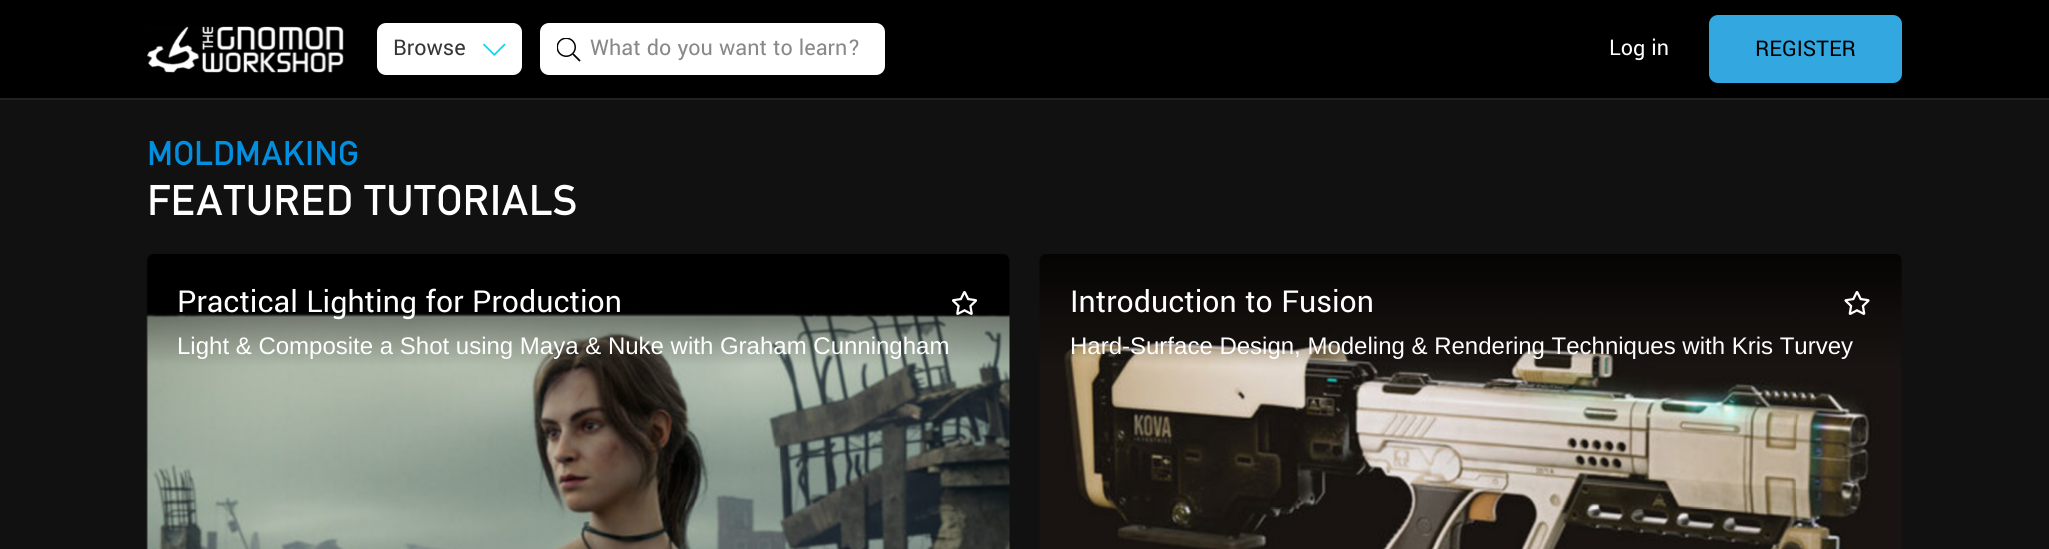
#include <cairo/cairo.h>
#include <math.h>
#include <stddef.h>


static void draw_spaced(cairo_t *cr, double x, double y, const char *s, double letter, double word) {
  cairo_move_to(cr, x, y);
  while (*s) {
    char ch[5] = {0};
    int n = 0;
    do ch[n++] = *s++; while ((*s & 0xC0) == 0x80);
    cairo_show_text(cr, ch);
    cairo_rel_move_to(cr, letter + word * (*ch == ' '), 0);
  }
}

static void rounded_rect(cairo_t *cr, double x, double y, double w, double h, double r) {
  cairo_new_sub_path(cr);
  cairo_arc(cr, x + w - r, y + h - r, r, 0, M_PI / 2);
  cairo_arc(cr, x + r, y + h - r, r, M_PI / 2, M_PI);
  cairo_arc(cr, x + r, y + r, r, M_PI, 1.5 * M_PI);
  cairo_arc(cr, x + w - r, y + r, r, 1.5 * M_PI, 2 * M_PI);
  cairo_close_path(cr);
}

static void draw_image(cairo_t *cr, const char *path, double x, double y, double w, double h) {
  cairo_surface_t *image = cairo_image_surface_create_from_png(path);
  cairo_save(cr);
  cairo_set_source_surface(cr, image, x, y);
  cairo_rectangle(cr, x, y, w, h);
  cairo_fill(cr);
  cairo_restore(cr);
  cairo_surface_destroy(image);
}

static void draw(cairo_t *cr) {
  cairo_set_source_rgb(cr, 0, 0, 0);
  cairo_paint(cr);
  draw_image(cr, "images/1.png", 147, 26, 197, 47);
  cairo_set_source_rgb(cr, 1, 1, 1);
  rounded_rect(cr, 377, 23, 145, 52, 9);
  cairo_fill(cr);
  draw_image(cr, "images/2.png", 483, 43, 23, 13);
  rounded_rect(cr, 540, 23, 345, 52, 9);
  cairo_fill(cr);
  draw_image(cr, "images/3.png", 557, 38, 24, 24);
  cairo_set_source_rgb(cr, 51 / 255.0, 168 / 255.0, 224 / 255.0);
  rounded_rect(cr, 1710, 16, 191, 66, 8);
  cairo_fill_preserve(cr);
  cairo_stroke(cr);
  cairo_set_source_rgb(cr, 17 / 255.0, 17 / 255.0, 17 / 255.0);
  cairo_rectangle(cr, 0, 100, 2049, 449);
  cairo_fill(cr);
  cairo_set_source_rgb(cr, 33 / 255.0, 33 / 255.0, 33 / 255.0);
  cairo_rectangle(cr, 0, 98, 2049, 2);
  cairo_fill(cr);
  draw_image(cr, "images/4.png", 146, 254, 864, 295);
  draw_image(cr, "images/5.png", 952, 291, 25, 24);
  draw_image(cr, "images/6.png", 1039, 254, 863, 295);
  draw_image(cr, "images/7.png", 1844, 291, 26, 24);
  cairo_select_font_face(cr, "Yantramanav", CAIRO_FONT_SLANT_NORMAL, CAIRO_FONT_WEIGHT_NORMAL);
  cairo_set_font_size(cr, 24);
  cairo_set_source_rgb(cr, 54 / 255.0, 54 / 255.0, 54 / 255.0);
  cairo_move_to(cr, 393, 55);
  cairo_show_text(cr, "Browse");
  cairo_set_source_rgb(cr, 136 / 255.0, 136 / 255.0, 136 / 255.0);
  cairo_move_to(cr, 590, 55);
  cairo_show_text(cr, "What do you want to learn?");
  cairo_set_source_rgb(cr, 1, 1, 1);
  cairo_move_to(cr, 1609, 55);
  cairo_show_text(cr, "Log in");
  cairo_set_source_rgb(cr, 0, 0, 0);
  cairo_move_to(cr, 1755, 56);
  cairo_show_text(cr, "REGISTER");
  cairo_select_font_face(cr, "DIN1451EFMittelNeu", CAIRO_FONT_SLANT_NORMAL, CAIRO_FONT_WEIGHT_NORMAL);
  cairo_set_font_size(cr, 36);
  cairo_set_source_rgb(cr, 2 / 255.0, 143 / 255.0, 223 / 255.0);
  cairo_move_to(cr, 147, 165);
  cairo_show_text(cr, "MOLDMAKING");
  cairo_set_font_size(cr, 45);
  cairo_set_source_rgb(cr, 1, 1, 1);
  draw_spaced(cr, 147, 215, "FEATURED TUTORIALS", 0, -11);
  cairo_select_font_face(cr, "Yantramanav", CAIRO_FONT_SLANT_NORMAL, CAIRO_FONT_WEIGHT_NORMAL);
  cairo_set_font_size(cr, 33.6);
  cairo_move_to(cr, 177, 312);
  cairo_show_text(cr, "Practical Lighting for Production");
  cairo_select_font_face(cr, "Liberation Sans", CAIRO_FONT_SLANT_NORMAL, CAIRO_FONT_WEIGHT_NORMAL);
  cairo_set_font_size(cr, 24);
  cairo_move_to(cr, 177, 354);
  cairo_show_text(cr, "Light & Composite a Shot using Maya & Nuke with Graham Cunningham");
  cairo_select_font_face(cr, "Yantramanav", CAIRO_FONT_SLANT_NORMAL, CAIRO_FONT_WEIGHT_NORMAL);
  cairo_set_font_size(cr, 33.6);
  cairo_move_to(cr, 1070, 312);
  cairo_show_text(cr, "Introduction to Fusion");
  cairo_select_font_face(cr, "Liberation Sans", CAIRO_FONT_SLANT_NORMAL, CAIRO_FONT_WEIGHT_NORMAL);
  cairo_set_font_size(cr, 24);
  cairo_move_to(cr, 1070, 354);
  cairo_show_text(cr, "Hard-Surface Design, Modeling & Rendering Techniques with Kris Turvey");
}

int main(void) {
  cairo_surface_t *surface = cairo_image_surface_create(CAIRO_FORMAT_RGB24, 2049, 549);
  cairo_t *cr = cairo_create(surface);
  cairo_font_options_t *options = cairo_font_options_create();
  cairo_font_options_set_hint_metrics(options, CAIRO_HINT_METRICS_OFF);
  cairo_font_options_set_hint_style(options, CAIRO_HINT_STYLE_NONE);
  cairo_set_font_options(cr, options);
  cairo_set_miter_limit(cr, 4);
  draw(cr);
  cairo_surface_write_to_png(surface, "out.png");
  cairo_font_options_destroy(options);
  cairo_destroy(cr);
  cairo_surface_destroy(surface);
  return 0;
}
